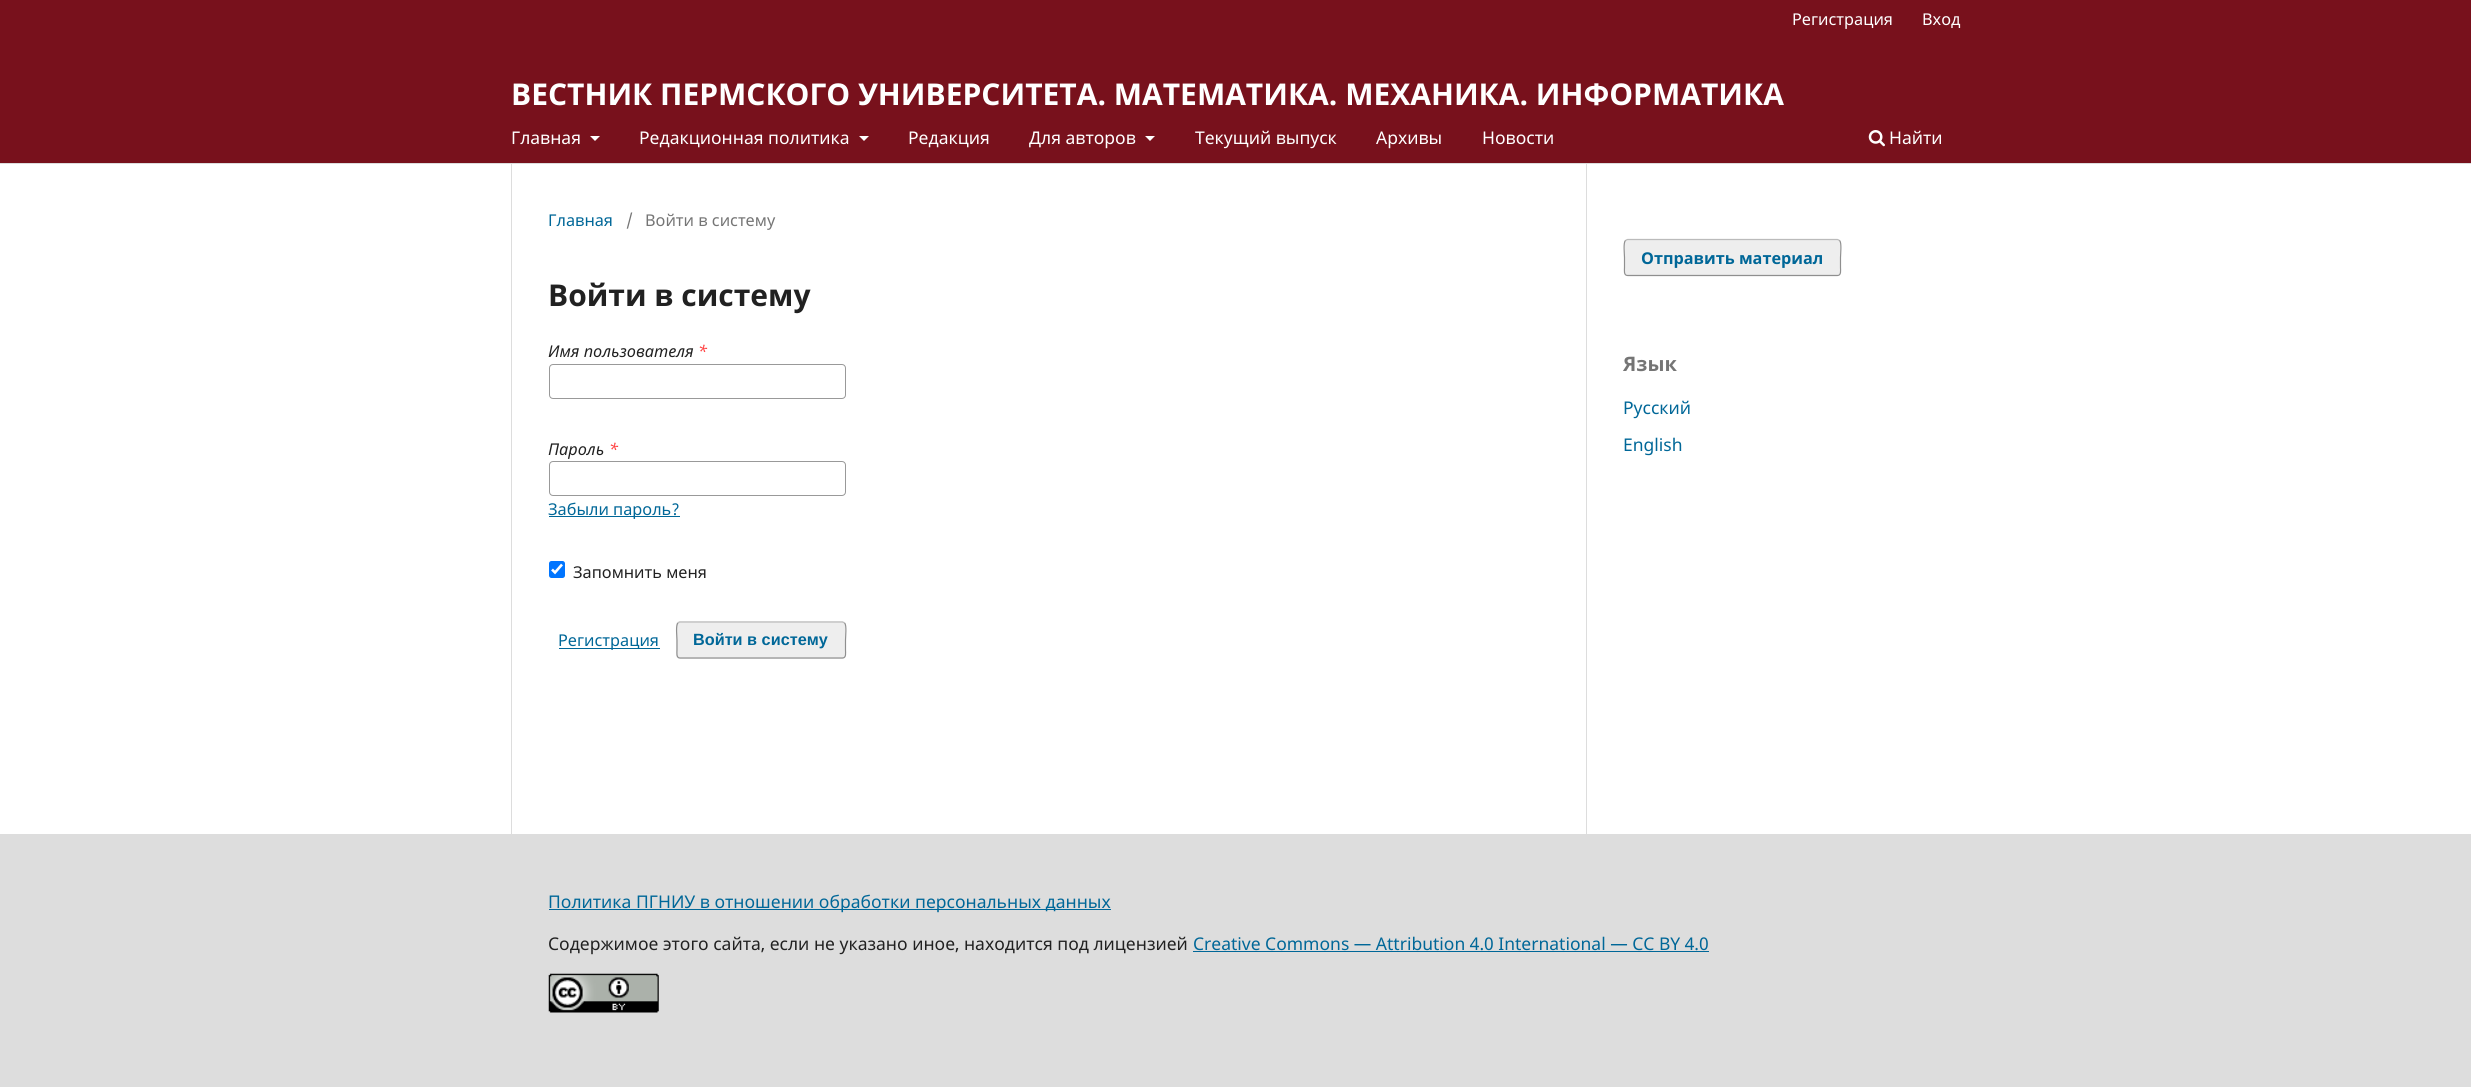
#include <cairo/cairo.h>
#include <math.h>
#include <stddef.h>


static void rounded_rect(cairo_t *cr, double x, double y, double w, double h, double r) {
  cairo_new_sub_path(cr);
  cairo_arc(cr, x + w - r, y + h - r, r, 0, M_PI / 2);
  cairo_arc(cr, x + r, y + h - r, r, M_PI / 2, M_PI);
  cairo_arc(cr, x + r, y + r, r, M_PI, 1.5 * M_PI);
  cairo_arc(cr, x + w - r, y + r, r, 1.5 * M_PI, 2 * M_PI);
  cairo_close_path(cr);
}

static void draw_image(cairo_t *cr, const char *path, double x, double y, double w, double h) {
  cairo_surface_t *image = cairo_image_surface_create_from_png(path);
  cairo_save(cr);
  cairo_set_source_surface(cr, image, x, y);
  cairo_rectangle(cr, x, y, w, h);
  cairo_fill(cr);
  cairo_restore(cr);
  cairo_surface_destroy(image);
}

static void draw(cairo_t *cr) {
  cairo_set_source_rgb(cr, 1, 1, 1);
  cairo_paint(cr);
  cairo_set_source_rgb(cr, 120 / 255.0, 17 / 255.0, 28 / 255.0);
  cairo_rectangle(cr, 0, 0, 2471, 163);
  cairo_fill(cr);
  cairo_set_source_rgb(cr, 221 / 255.0, 221 / 255.0, 221 / 255.0);
  cairo_rectangle(cr, 0, 163, 2471, 1);
  cairo_fill(cr);
  cairo_set_source_rgb(cr, 1, 1, 1);
  cairo_new_path(cr);
  cairo_move_to(cr, 590, 136);
  cairo_line_to(cr, 600, 136);
  cairo_line_to(cr, 595, 141);
  cairo_close_path(cr);
  cairo_fill(cr);
  cairo_new_path(cr);
  cairo_move_to(cr, 859, 136);
  cairo_line_to(cr, 869, 136);
  cairo_line_to(cr, 864, 141);
  cairo_close_path(cr);
  cairo_fill(cr);
  cairo_new_path(cr);
  cairo_move_to(cr, 1145, 136);
  cairo_line_to(cr, 1155, 136);
  cairo_line_to(cr, 1150, 141);
  cairo_close_path(cr);
  cairo_fill(cr);
  draw_image(cr, "images/1.png", 1868, 130, 17, 17);
  cairo_set_source_rgb(cr, 221 / 255.0, 221 / 255.0, 221 / 255.0);
  cairo_rectangle(cr, 511, 164, 1, 670);
  cairo_fill(cr);
  rounded_rect(cr, 549.5, 364.5, 296, 34, 3.5);
  cairo_set_source_rgb(cr, 153 / 255.0, 153 / 255.0, 153 / 255.0);
  cairo_set_line_width(cr, 1);
  cairo_stroke(cr);
  rounded_rect(cr, 549.5, 461.5, 296, 34, 3.5);
  cairo_stroke(cr);
  cairo_set_source_rgb(cr, 0, 103 / 255.0, 152 / 255.0);
  cairo_rectangle(cr, 549, 516, 131, 1);
  cairo_fill(cr);
  cairo_set_source_rgb(cr, 0, 117 / 255.0, 1);
  rounded_rect(cr, 549, 561, 16, 17, 2.5);
  cairo_fill(cr);
  cairo_new_path(cr);
  cairo_move_to(cr, 552, 569.5);
  cairo_line_to(cr, 555, 572.5);
  cairo_line_to(cr, 562, 564.5);
  cairo_set_source_rgb(cr, 1, 1, 1);
  cairo_set_line_width(cr, 2.6);
  cairo_stroke(cr);
  cairo_set_source_rgb(cr, 0, 103 / 255.0, 152 / 255.0);
  cairo_rectangle(cr, 559, 648, 101, 1);
  cairo_fill(cr);
  cairo_set_source_rgb(cr, 238 / 255.0, 238 / 255.0, 238 / 255.0);
  rounded_rect(cr, 676, 621, 170, 38, 4);
  cairo_fill(cr);
  cairo_new_path(cr);
  cairo_move_to(cr, 678, 623);
  cairo_line_to(cr, 679.5, 622);
  cairo_line_to(cr, 815.5, 622);
  cairo_line_to(cr, 842.5, 622);
  cairo_line_to(cr, 844.5, 623);
  cairo_set_source_rgb(cr, 187 / 255.0, 187 / 255.0, 187 / 255.0);
  cairo_set_line_width(cr, 1.2);
  cairo_stroke(cr);
  cairo_new_path(cr);
  cairo_move_to(cr, 844.5, 623);
  cairo_curve_to(cr, 847, 625, 845.5, 637, 845.5, 640);
  cairo_line_to(cr, 845.5, 650);
  cairo_curve_to(cr, 845.5, 652.5, 846.5, 658, 842.5, 658);
  cairo_line_to(cr, 680, 658);
  cairo_curve_to(cr, 676, 658, 677, 652.5, 677, 650);
  cairo_line_to(cr, 677, 640);
  cairo_curve_to(cr, 677, 637, 675.5, 625, 678, 623);
  cairo_set_source_rgba(cr, 0, 0, 0, 0.4);
  cairo_stroke(cr);
  cairo_set_source_rgb(cr, 221 / 255.0, 221 / 255.0, 221 / 255.0);
  cairo_rectangle(cr, 1586, 164, 1, 670);
  cairo_fill(cr);
  cairo_set_source_rgb(cr, 238 / 255.0, 238 / 255.0, 238 / 255.0);
  rounded_rect(cr, 1624, 239, 217, 37, 4);
  cairo_fill(cr);
  cairo_new_path(cr);
  cairo_move_to(cr, 1625.5, 240.5);
  cairo_line_to(cr, 1627.5, 239.5);
  cairo_line_to(cr, 1837.5, 239.5);
  cairo_line_to(cr, 1839.5, 240.5);
  cairo_set_source_rgb(cr, 187 / 255.0, 187 / 255.0, 187 / 255.0);
  cairo_stroke(cr);
  cairo_new_path(cr);
  cairo_move_to(cr, 1839.5, 240.5);
  cairo_curve_to(cr, 1842, 242.5, 1840.5, 254.5, 1840.5, 257.5);
  cairo_line_to(cr, 1840.5, 267.5);
  cairo_curve_to(cr, 1840.5, 270, 1841.5, 275.5, 1837.5, 275.5);
  cairo_line_to(cr, 1627.5, 275.5);
  cairo_curve_to(cr, 1623.5, 275.5, 1624.5, 270, 1624.5, 267.5);
  cairo_line_to(cr, 1624.5, 257.5);
  cairo_curve_to(cr, 1624.5, 254.5, 1623, 242.5, 1625.5, 240.5);
  cairo_set_source_rgba(cr, 0, 0, 0, 0.4);
  cairo_stroke(cr);
  cairo_set_source_rgb(cr, 221 / 255.0, 221 / 255.0, 221 / 255.0);
  cairo_rectangle(cr, 0, 834, 2471, 253);
  cairo_fill(cr);
  cairo_set_source_rgb(cr, 0, 103 / 255.0, 152 / 255.0);
  cairo_rectangle(cr, 549, 909, 562, 1);
  cairo_fill(cr);
  cairo_rectangle(cr, 1193, 951, 516, 1);
  cairo_fill(cr);
  draw_image(cr, "images/2.png", 548, 973, 111, 40);
  cairo_select_font_face(cr, "Noto Sans", CAIRO_FONT_SLANT_NORMAL, CAIRO_FONT_WEIGHT_NORMAL);
  cairo_set_font_size(cr, 16.25);
  cairo_set_source_rgb(cr, 1, 1, 1);
  cairo_move_to(cr, 1792, 25);
  cairo_show_text(cr, "Регистрация");
  cairo_move_to(cr, 1922, 25);
  cairo_show_text(cr, "Вход");
  cairo_set_font_size(cr, 17.5);
  cairo_move_to(cr, 511, 144);
  cairo_show_text(cr, "Главная");
  cairo_move_to(cr, 639, 144);
  cairo_show_text(cr, "Редакционная политика");
  cairo_move_to(cr, 908, 144);
  cairo_show_text(cr, "Редакция");
  cairo_move_to(cr, 1029, 144);
  cairo_show_text(cr, "Для авторов");
  cairo_move_to(cr, 1195, 144);
  cairo_show_text(cr, "Текущий выпуск");
  cairo_move_to(cr, 1376, 144);
  cairo_show_text(cr, "Архивы");
  cairo_move_to(cr, 1482, 144);
  cairo_show_text(cr, "Новости");
  cairo_move_to(cr, 1889, 144);
  cairo_show_text(cr, "Найти");
  cairo_select_font_face(cr, "Noto Sans", CAIRO_FONT_SLANT_NORMAL, CAIRO_FONT_WEIGHT_BOLD);
  cairo_set_font_size(cr, 30);
  cairo_move_to(cr, 511, 105);
  cairo_show_text(cr, "ВЕСТНИК ПЕРМСКОГО УНИВЕРСИТЕТА. МАТЕМАТИКА. МЕХАНИКА. ИНФОРМАТИКА");
  cairo_select_font_face(cr, "Noto Sans", CAIRO_FONT_SLANT_NORMAL, CAIRO_FONT_WEIGHT_NORMAL);
  cairo_set_font_size(cr, 16.25);
  cairo_set_source_rgb(cr, 0, 103 / 255.0, 152 / 255.0);
  cairo_move_to(cr, 548, 226);
  cairo_show_text(cr, "Главная");
  cairo_set_source_rgb(cr, 117 / 255.0, 117 / 255.0, 117 / 255.0);
  cairo_move_to(cr, 626, 226);
  cairo_show_text(cr, "/");
  cairo_move_to(cr, 645, 226);
  cairo_show_text(cr, "Войти в систему");
  cairo_select_font_face(cr, "Noto Sans", CAIRO_FONT_SLANT_NORMAL, CAIRO_FONT_WEIGHT_BOLD);
  cairo_set_font_size(cr, 30);
  cairo_set_source_rgb(cr, 33 / 255.0, 33 / 255.0, 33 / 255.0);
  cairo_move_to(cr, 548, 306);
  cairo_show_text(cr, "Войти в систему");
  cairo_select_font_face(cr, "Noto Sans", CAIRO_FONT_SLANT_ITALIC, CAIRO_FONT_WEIGHT_NORMAL);
  cairo_set_font_size(cr, 16.25);
  cairo_move_to(cr, 548, 357);
  cairo_show_text(cr, "Имя пользователя");
  cairo_set_source_rgb(cr, 1, 64 / 255.0, 64 / 255.0);
  cairo_move_to(cr, 698, 357);
  cairo_show_text(cr, "*");
  cairo_set_source_rgb(cr, 33 / 255.0, 33 / 255.0, 33 / 255.0);
  cairo_move_to(cr, 548, 455);
  cairo_show_text(cr, "Пароль");
  cairo_set_source_rgb(cr, 1, 64 / 255.0, 64 / 255.0);
  cairo_move_to(cr, 609, 455);
  cairo_show_text(cr, "*");
  cairo_select_font_face(cr, "Noto Sans", CAIRO_FONT_SLANT_NORMAL, CAIRO_FONT_WEIGHT_NORMAL);
  cairo_set_source_rgb(cr, 0, 103 / 255.0, 152 / 255.0);
  cairo_move_to(cr, 548, 515);
  cairo_show_text(cr, "Забыли пароль?");
  cairo_set_source_rgb(cr, 33 / 255.0, 33 / 255.0, 33 / 255.0);
  cairo_move_to(cr, 573, 578);
  cairo_show_text(cr, "Запомнить меня");
  cairo_set_source_rgb(cr, 0, 103 / 255.0, 152 / 255.0);
  cairo_move_to(cr, 558, 646);
  cairo_show_text(cr, "Регистрация");
  cairo_select_font_face(cr, "Liberation Sans", CAIRO_FONT_SLANT_NORMAL, CAIRO_FONT_WEIGHT_BOLD);
  cairo_move_to(cr, 693, 645);
  cairo_show_text(cr, "Войти в систему");
  cairo_select_font_face(cr, "Noto Sans", CAIRO_FONT_SLANT_NORMAL, CAIRO_FONT_WEIGHT_BOLD);
  cairo_move_to(cr, 1641, 264);
  cairo_show_text(cr, "Отправить материал");
  cairo_set_font_size(cr, 20);
  cairo_set_source_rgb(cr, 117 / 255.0, 117 / 255.0, 117 / 255.0);
  cairo_move_to(cr, 1623, 371);
  cairo_show_text(cr, "Язык");
  cairo_select_font_face(cr, "Noto Sans", CAIRO_FONT_SLANT_NORMAL, CAIRO_FONT_WEIGHT_NORMAL);
  cairo_set_font_size(cr, 17.5);
  cairo_set_source_rgb(cr, 0, 103 / 255.0, 152 / 255.0);
  cairo_move_to(cr, 1623, 414);
  cairo_show_text(cr, "Русский");
  cairo_move_to(cr, 1623, 451);
  cairo_show_text(cr, "English");
  cairo_move_to(cr, 548, 908);
  cairo_show_text(cr, "Политика ПГНИУ в отношении обработки персональных данных");
  cairo_set_source_rgb(cr, 33 / 255.0, 33 / 255.0, 33 / 255.0);
  cairo_move_to(cr, 548, 950);
  cairo_show_text(cr, "Содержимое этого сайта, если не указано иное, находится под лицензией");
  cairo_set_source_rgb(cr, 0, 103 / 255.0, 152 / 255.0);
  cairo_move_to(cr, 1193, 950);
  cairo_show_text(cr, "Creative Commons — Attribution 4.0 International — CC BY 4.0");
}

int main(void) {
  cairo_surface_t *surface = cairo_image_surface_create(CAIRO_FORMAT_RGB24, 2471, 1087);
  cairo_t *cr = cairo_create(surface);
  cairo_font_options_t *options = cairo_font_options_create();
  cairo_font_options_set_hint_metrics(options, CAIRO_HINT_METRICS_OFF);
  cairo_font_options_set_hint_style(options, CAIRO_HINT_STYLE_NONE);
  cairo_set_font_options(cr, options);
  cairo_set_miter_limit(cr, 4);
  draw(cr);
  cairo_surface_write_to_png(surface, "out.png");
  cairo_font_options_destroy(options);
  cairo_destroy(cr);
  cairo_surface_destroy(surface);
  return 0;
}
